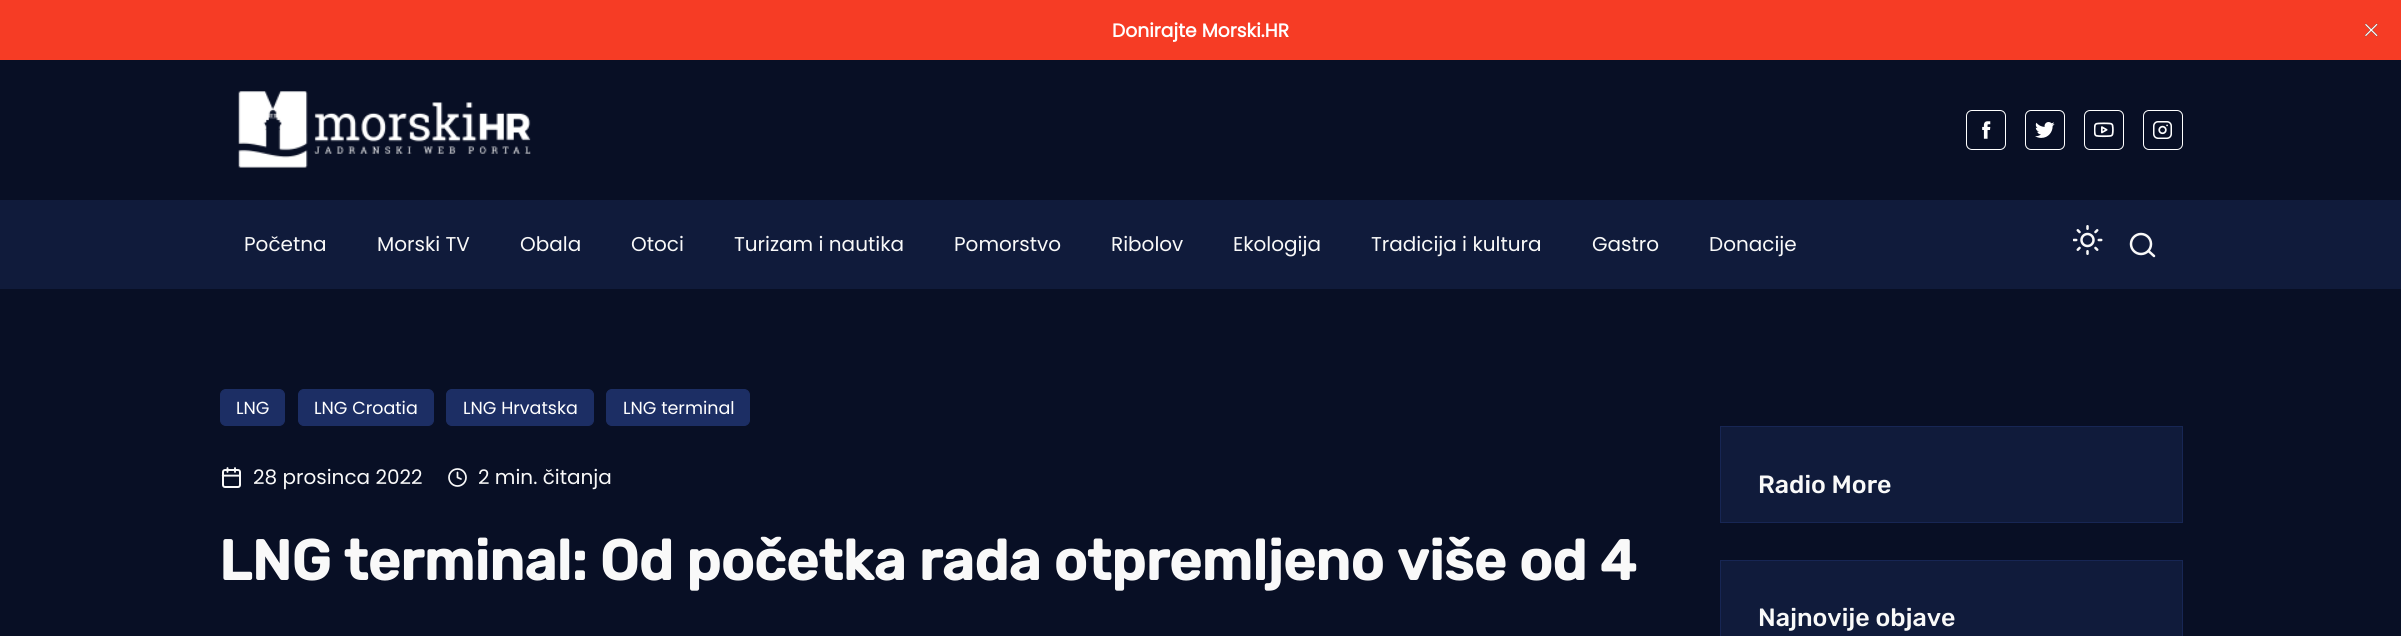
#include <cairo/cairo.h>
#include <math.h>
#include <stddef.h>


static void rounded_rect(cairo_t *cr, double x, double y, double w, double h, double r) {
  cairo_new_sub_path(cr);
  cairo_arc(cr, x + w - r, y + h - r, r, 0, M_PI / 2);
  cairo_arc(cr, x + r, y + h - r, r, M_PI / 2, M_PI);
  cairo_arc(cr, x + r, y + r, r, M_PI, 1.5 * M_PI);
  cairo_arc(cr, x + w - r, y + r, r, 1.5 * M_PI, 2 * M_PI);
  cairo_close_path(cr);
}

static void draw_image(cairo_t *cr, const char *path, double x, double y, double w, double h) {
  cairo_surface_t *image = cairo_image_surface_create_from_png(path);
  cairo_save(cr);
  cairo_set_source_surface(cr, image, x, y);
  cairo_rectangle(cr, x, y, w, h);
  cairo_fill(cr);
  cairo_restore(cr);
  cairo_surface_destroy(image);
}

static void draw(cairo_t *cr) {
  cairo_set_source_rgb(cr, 8 / 255.0, 15 / 255.0, 37 / 255.0);
  cairo_paint(cr);
  cairo_set_source_rgb(cr, 246 / 255.0, 60 / 255.0, 37 / 255.0);
  cairo_rectangle(cr, 0, 0, 2401, 60);
  cairo_fill(cr);
  draw_image(cr, "images/1.png", 2364, 23, 14, 14);
  draw_image(cr, "images/2.png", 238, 91, 293, 77);
  rounded_rect(cr, 1966.5, 110.5, 39, 39, 5.5);
  cairo_set_source_rgb(cr, 1, 1, 1);
  cairo_set_line_width(cr, 1);
  cairo_stroke(cr);
  draw_image(cr, "images/3.png", 1982, 121, 9, 18);
  rounded_rect(cr, 2025.5, 110.5, 39, 39, 5.5);
  cairo_stroke(cr);
  draw_image(cr, "images/4.png", 2035, 122, 20, 16);
  rounded_rect(cr, 2084.5, 110.5, 39, 39, 5.5);
  cairo_stroke(cr);
  draw_image(cr, "images/5.png", 2094, 122, 20, 16);
  rounded_rect(cr, 2143.5, 110.5, 39, 39, 5.5);
  cairo_stroke(cr);
  draw_image(cr, "images/6.png", 2153, 121, 19, 18);
  cairo_set_source_rgb(cr, 16 / 255.0, 27 / 255.0, 59 / 255.0);
  cairo_rectangle(cr, 0, 200, 2401, 89);
  cairo_fill(cr);
  draw_image(cr, "images/7.png", 2073, 225, 30, 30);
  cairo_arc(cr, 2141, 244, 10, 0, 2 * M_PI);
  cairo_set_source_rgb(cr, 249 / 255.0, 249 / 255.0, 249 / 255.0);
  cairo_set_line_width(cr, 2.5);
  cairo_stroke(cr);
  cairo_new_path(cr);
  cairo_move_to(cr, 2154, 256);
  cairo_line_to(cr, 2148.5, 251);
  cairo_set_line_cap(cr, CAIRO_LINE_CAP_ROUND);
  cairo_set_line_join(cr, CAIRO_LINE_JOIN_ROUND);
  cairo_stroke(cr);
  cairo_set_source_rgb(cr, 28 / 255.0, 46 / 255.0, 100 / 255.0);
  rounded_rect(cr, 220.5, 389.5, 64, 36, 5.5);
  cairo_fill_preserve(cr);
  cairo_set_line_width(cr, 1);
  cairo_set_line_cap(cr, CAIRO_LINE_CAP_BUTT);
  cairo_set_line_join(cr, CAIRO_LINE_JOIN_MITER);
  cairo_stroke(cr);
  rounded_rect(cr, 298.5, 389.5, 135, 36, 5.5);
  cairo_fill_preserve(cr);
  cairo_stroke(cr);
  rounded_rect(cr, 446.5, 389.5, 147, 36, 5.5);
  cairo_fill_preserve(cr);
  cairo_stroke(cr);
  rounded_rect(cr, 606.5, 389.5, 143, 36, 5.5);
  cairo_fill_preserve(cr);
  cairo_stroke(cr);
  draw_image(cr, "images/8.png", 221, 467, 20, 21);
  cairo_arc(cr, 457.5, 477.5, 8.5, 0, 2 * M_PI);
  cairo_set_source_rgb(cr, 249 / 255.0, 249 / 255.0, 249 / 255.0);
  cairo_set_line_width(cr, 1.7);
  cairo_stroke(cr);
  cairo_new_path(cr);
  cairo_move_to(cr, 457.5, 472.5);
  cairo_line_to(cr, 457.5, 477.5);
  cairo_line_to(cr, 461, 479);
  cairo_set_line_cap(cr, CAIRO_LINE_CAP_ROUND);
  cairo_set_line_join(cr, CAIRO_LINE_JOIN_ROUND);
  cairo_stroke(cr);
  cairo_set_source_rgb(cr, 16 / 255.0, 27 / 255.0, 59 / 255.0);
  cairo_rectangle(cr, 1720.5, 426.5, 462, 96);
  cairo_fill_preserve(cr);
  cairo_set_source_rgb(cr, 23 / 255.0, 38 / 255.0, 84 / 255.0);
  cairo_set_line_width(cr, 1);
  cairo_set_line_cap(cr, CAIRO_LINE_CAP_BUTT);
  cairo_set_line_join(cr, CAIRO_LINE_JOIN_MITER);
  cairo_stroke(cr);
  cairo_set_source_rgb(cr, 16 / 255.0, 27 / 255.0, 59 / 255.0);
  cairo_rectangle(cr, 1720.5, 560.5, 462, 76);
  cairo_fill_preserve(cr);
  cairo_set_source_rgb(cr, 23 / 255.0, 38 / 255.0, 84 / 255.0);
  cairo_stroke(cr);
  cairo_select_font_face(cr, "Poppins", CAIRO_FONT_SLANT_NORMAL, CAIRO_FONT_WEIGHT_BOLD);
  cairo_set_font_size(cr, 18.75);
  cairo_set_source_rgb(cr, 1, 1, 1);
  cairo_move_to(cr, 1112, 37);
  cairo_show_text(cr, "Donirajte Morski.HR");
  cairo_select_font_face(cr, "Poppins", CAIRO_FONT_SLANT_NORMAL, CAIRO_FONT_WEIGHT_NORMAL);
  cairo_set_font_size(cr, 20);
  cairo_set_source_rgb(cr, 249 / 255.0, 249 / 255.0, 249 / 255.0);
  cairo_move_to(cr, 244, 251);
  cairo_show_text(cr, "Početna");
  cairo_move_to(cr, 377, 251);
  cairo_show_text(cr, "Morski TV");
  cairo_move_to(cr, 520, 251);
  cairo_show_text(cr, "Obala");
  cairo_move_to(cr, 631, 251);
  cairo_show_text(cr, "Otoci");
  cairo_move_to(cr, 734, 251);
  cairo_show_text(cr, "Turizam i nautika");
  cairo_move_to(cr, 954, 251);
  cairo_show_text(cr, "Pomorstvo");
  cairo_move_to(cr, 1111, 251);
  cairo_show_text(cr, "Ribolov");
  cairo_move_to(cr, 1233, 251);
  cairo_show_text(cr, "Ekologija");
  cairo_move_to(cr, 1371, 251);
  cairo_show_text(cr, "Tradicija i kultura");
  cairo_move_to(cr, 1592, 251);
  cairo_show_text(cr, "Gastro");
  cairo_move_to(cr, 1709, 251);
  cairo_show_text(cr, "Donacije");
  cairo_set_font_size(cr, 17.5);
  cairo_set_source_rgb(cr, 1, 1, 1);
  cairo_move_to(cr, 236, 414);
  cairo_show_text(cr, "LNG");
  cairo_move_to(cr, 314, 414);
  cairo_show_text(cr, "LNG Croatia");
  cairo_move_to(cr, 463, 414);
  cairo_show_text(cr, "LNG Hrvatska");
  cairo_move_to(cr, 623, 414);
  cairo_show_text(cr, "LNG terminal");
  cairo_set_font_size(cr, 20);
  cairo_set_source_rgb(cr, 249 / 255.0, 249 / 255.0, 249 / 255.0);
  cairo_move_to(cr, 253, 484);
  cairo_show_text(cr, "28 prosinca 2022");
  cairo_move_to(cr, 478, 484);
  cairo_show_text(cr, "2 min. čitanja");
  cairo_select_font_face(cr, "Rubik", CAIRO_FONT_SLANT_NORMAL, CAIRO_FONT_WEIGHT_BOLD);
  cairo_set_font_size(cr, 56.25);
  cairo_move_to(cr, 219, 580);
  cairo_show_text(cr, "LNG terminal: Od početka rada otpremljeno više od 4");
  cairo_select_font_face(cr, "Rubik Medium", CAIRO_FONT_SLANT_NORMAL, CAIRO_FONT_WEIGHT_NORMAL);
  cairo_set_font_size(cr, 25);
  cairo_move_to(cr, 1758, 493);
  cairo_show_text(cr, "Radio More");
  cairo_move_to(cr, 1758, 626);
  cairo_show_text(cr, "Najnovije objave");
}

int main(void) {
  cairo_surface_t *surface = cairo_image_surface_create(CAIRO_FORMAT_RGB24, 2401, 636);
  cairo_t *cr = cairo_create(surface);
  cairo_font_options_t *options = cairo_font_options_create();
  cairo_font_options_set_hint_metrics(options, CAIRO_HINT_METRICS_OFF);
  cairo_font_options_set_hint_style(options, CAIRO_HINT_STYLE_NONE);
  cairo_set_font_options(cr, options);
  cairo_set_miter_limit(cr, 4);
  draw(cr);
  cairo_surface_write_to_png(surface, "out.png");
  cairo_font_options_destroy(options);
  cairo_destroy(cr);
  cairo_surface_destroy(surface);
  return 0;
}
